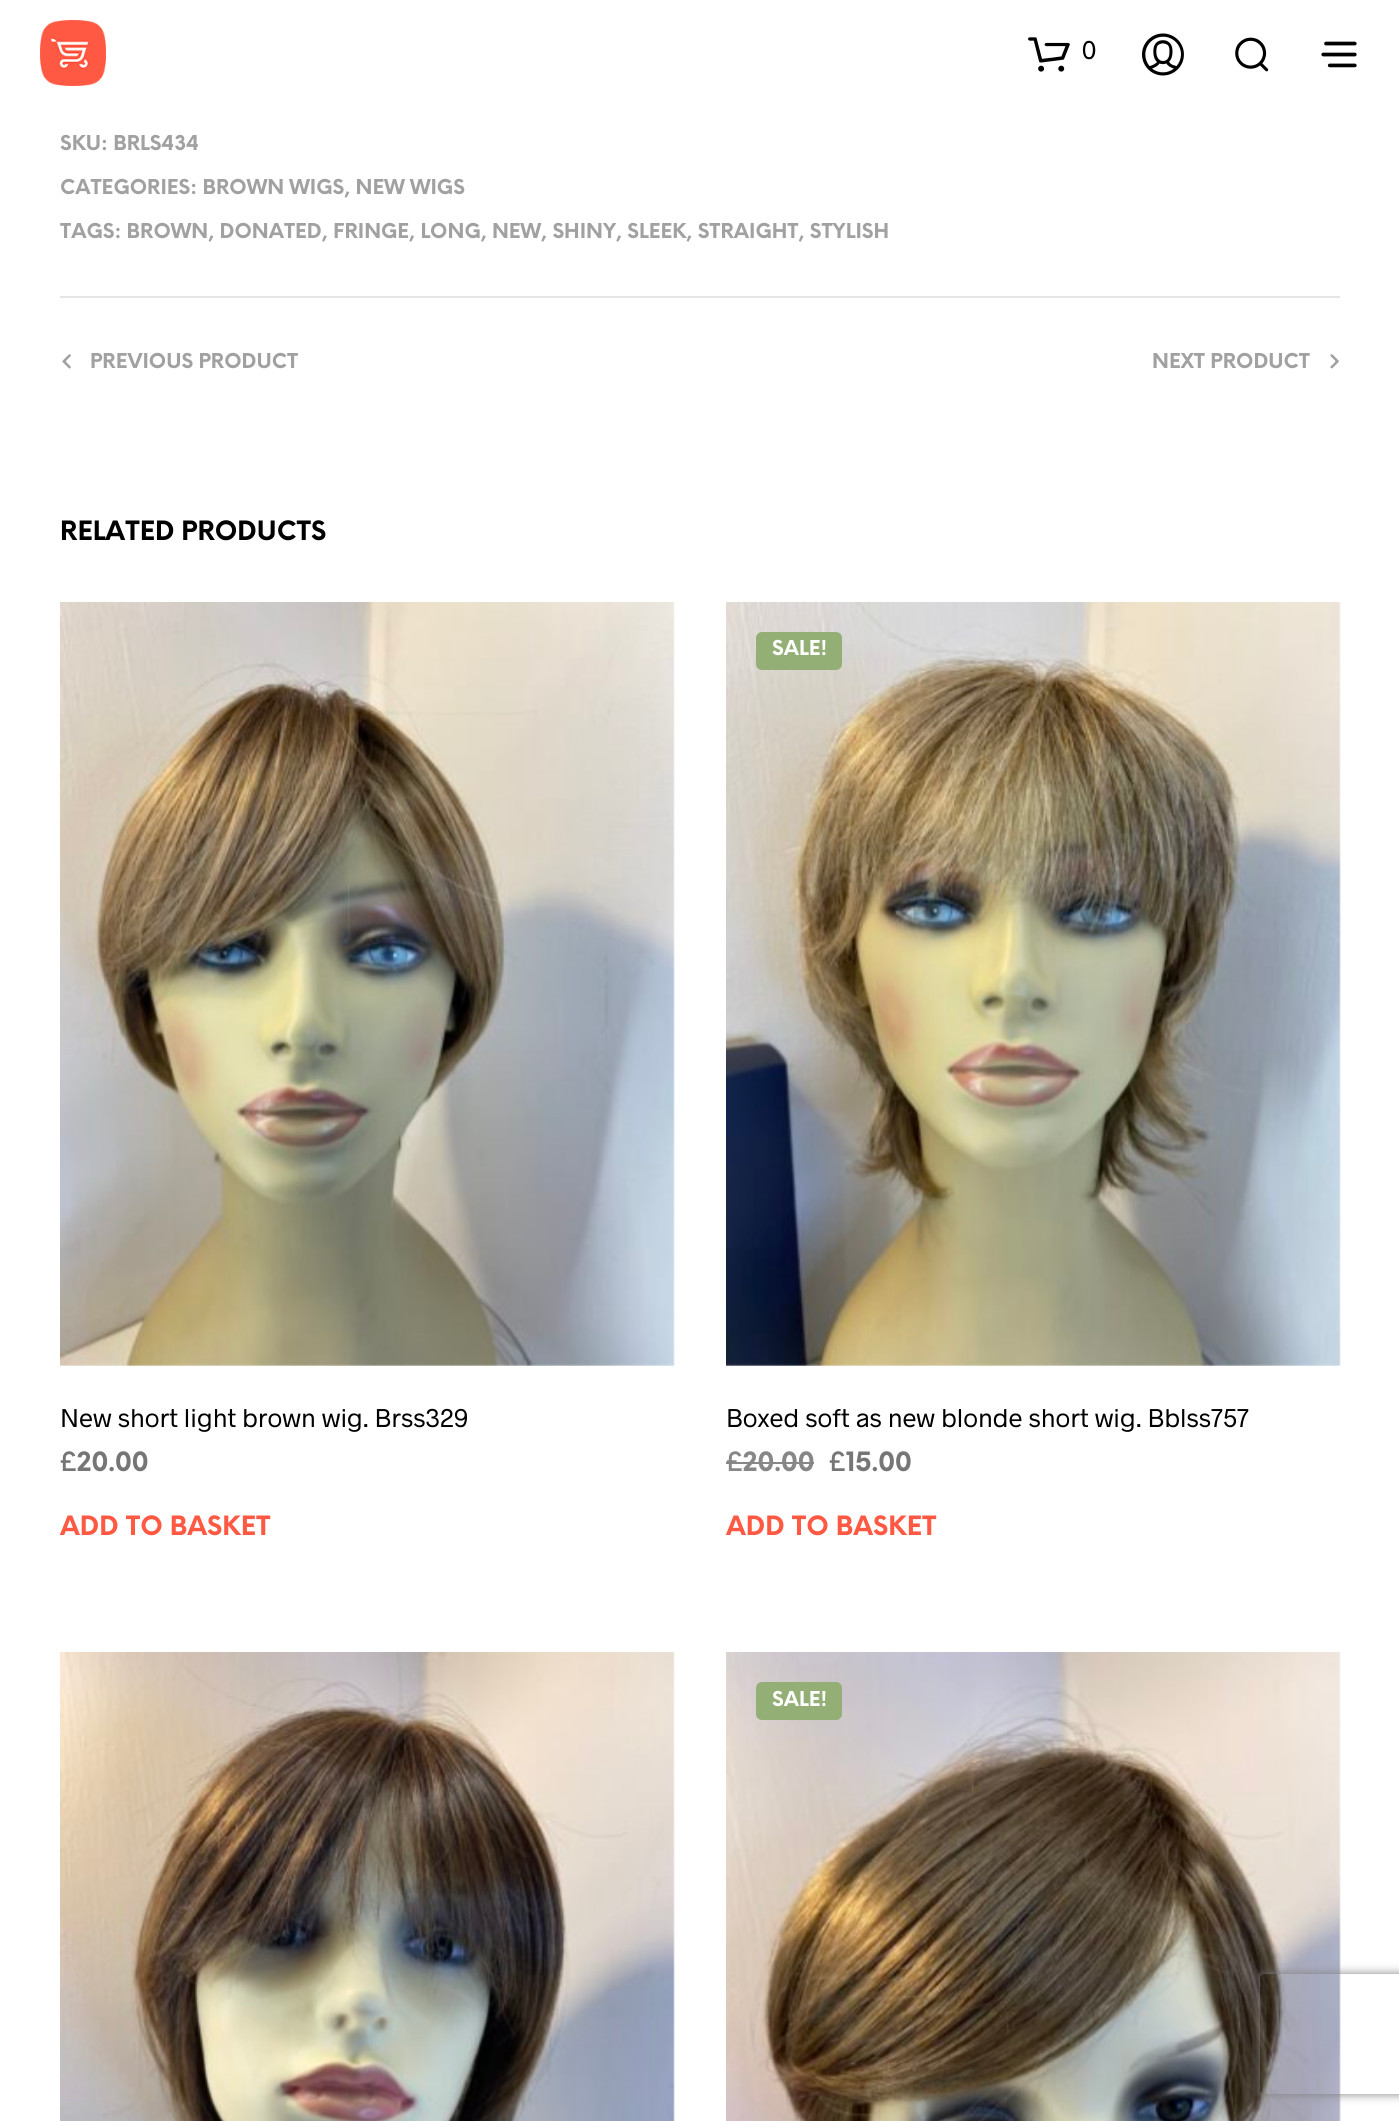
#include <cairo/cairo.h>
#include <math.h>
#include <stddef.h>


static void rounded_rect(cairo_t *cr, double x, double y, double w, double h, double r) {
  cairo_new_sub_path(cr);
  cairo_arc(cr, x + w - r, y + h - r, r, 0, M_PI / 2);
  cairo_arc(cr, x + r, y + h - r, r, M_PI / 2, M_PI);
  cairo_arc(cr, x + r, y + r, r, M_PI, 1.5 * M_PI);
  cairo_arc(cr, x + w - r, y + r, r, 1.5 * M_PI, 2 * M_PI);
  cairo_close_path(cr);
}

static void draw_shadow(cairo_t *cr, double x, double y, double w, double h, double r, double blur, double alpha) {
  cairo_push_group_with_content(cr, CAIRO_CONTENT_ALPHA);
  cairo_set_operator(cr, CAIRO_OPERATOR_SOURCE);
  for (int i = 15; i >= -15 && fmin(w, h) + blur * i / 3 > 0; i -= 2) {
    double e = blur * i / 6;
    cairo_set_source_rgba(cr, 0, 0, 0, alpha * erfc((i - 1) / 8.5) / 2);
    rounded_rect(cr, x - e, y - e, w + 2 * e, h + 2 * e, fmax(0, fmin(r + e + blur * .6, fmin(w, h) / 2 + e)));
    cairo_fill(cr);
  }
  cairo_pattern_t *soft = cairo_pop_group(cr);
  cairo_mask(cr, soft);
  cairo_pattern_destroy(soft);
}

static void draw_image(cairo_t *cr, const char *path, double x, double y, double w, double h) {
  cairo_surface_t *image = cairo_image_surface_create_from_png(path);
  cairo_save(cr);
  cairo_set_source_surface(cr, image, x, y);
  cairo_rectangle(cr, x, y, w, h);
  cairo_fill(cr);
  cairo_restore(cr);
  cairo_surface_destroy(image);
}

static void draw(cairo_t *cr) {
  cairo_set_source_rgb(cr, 1, 1, 1);
  cairo_paint(cr);
  draw_image(cr, "images/1.png", 40, 20, 66, 66);
  draw_image(cr, "images/2.png", 1028, 37, 42, 35);
  draw_image(cr, "images/3.png", 1142, 33, 42, 43);
  draw_image(cr, "images/4.png", 1235, 37, 34, 35);
  draw_image(cr, "images/5.png", 1321, 41, 36, 27);
  cairo_set_source_rgb(cr, 229 / 255.0, 229 / 255.0, 229 / 255.0);
  cairo_rectangle(cr, 60, 296, 1280, 2);
  cairo_fill(cr);
  draw_image(cr, "images/6.png", 62, 354, 9, 15);
  draw_image(cr, "images/7.png", 1330, 354, 9, 15);
  draw_image(cr, "images/8.png", 60, 602, 615, 764);
  draw_image(cr, "images/9.png", 726, 602, 615, 764);
  cairo_set_source_rgb(cr, 147 / 255.0, 175 / 255.0, 118 / 255.0);
  rounded_rect(cr, 756, 632, 86, 38, 6);
  cairo_fill(cr);
  cairo_set_source_rgb(cr, 135 / 255.0, 135 / 255.0, 135 / 255.0);
  cairo_rectangle(cr, 726, 1462, 88, 2);
  cairo_fill(cr);
  draw_image(cr, "images/10.png", 60, 1652, 615, 469);
  draw_image(cr, "images/11.png", 726, 1652, 615, 469);
  cairo_set_source_rgb(cr, 147 / 255.0, 175 / 255.0, 118 / 255.0);
  rounded_rect(cr, 756, 1682, 86, 38, 6);
  cairo_fill(cr);
  cairo_save(cr);
  cairo_set_fill_rule(cr, CAIRO_FILL_RULE_EVEN_ODD);
  cairo_new_path(cr);
  cairo_move_to(cr, 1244, 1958);
  cairo_line_to(cr, 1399, 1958);
  cairo_line_to(cr, 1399, 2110);
  cairo_line_to(cr, 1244, 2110);
  cairo_close_path(cr);
  cairo_move_to(cr, 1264, 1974);
  cairo_line_to(cr, 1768, 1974);
  cairo_curve_to(cr, 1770, 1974, 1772, 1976, 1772, 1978);
  cairo_line_to(cr, 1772, 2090);
  cairo_curve_to(cr, 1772, 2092, 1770, 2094, 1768, 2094);
  cairo_line_to(cr, 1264, 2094);
  cairo_curve_to(cr, 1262, 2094, 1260, 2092, 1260, 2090);
  cairo_line_to(cr, 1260, 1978);
  cairo_curve_to(cr, 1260, 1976, 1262, 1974, 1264, 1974);
  cairo_close_path(cr);
  cairo_clip(cr);
  cairo_set_source_rgb(cr, 128 / 255.0, 128 / 255.0, 128 / 255.0);
  draw_shadow(cr, 1260, 1974, 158, 120, 4, 5, 1);
  cairo_restore(cr);
  cairo_select_font_face(cr, "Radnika", CAIRO_FONT_SLANT_NORMAL, CAIRO_FONT_WEIGHT_NORMAL);
  cairo_set_font_size(cr, 26);
  cairo_set_source_rgb(cr, 0, 0, 0);
  cairo_move_to(cr, 1082, 59);
  cairo_show_text(cr, "0");
  cairo_select_font_face(cr, "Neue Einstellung", CAIRO_FONT_SLANT_NORMAL, CAIRO_FONT_WEIGHT_BOLD);
  cairo_set_font_size(cr, 20);
  cairo_set_source_rgb(cr, 161 / 255.0, 161 / 255.0, 161 / 255.0);
  cairo_move_to(cr, 60, 150);
  cairo_show_text(cr, "SKU: BRLS434");
  cairo_move_to(cr, 60, 194);
  cairo_show_text(cr, "CATEGORIES: BROWN WIGS, NEW WIGS");
  cairo_move_to(cr, 60, 238);
  cairo_show_text(cr, "TAGS: BROWN, DONATED, FRINGE, LONG, NEW, SHINY, SLEEK, STRAIGHT, STYLISH");
  cairo_move_to(cr, 90, 368);
  cairo_show_text(cr, "PREVIOUS PRODUCT");
  cairo_move_to(cr, 1152, 368);
  cairo_show_text(cr, "NEXT PRODUCT");
  cairo_set_font_size(cr, 26);
  cairo_set_source_rgb(cr, 0, 0, 0);
  cairo_move_to(cr, 60, 540);
  cairo_show_text(cr, "RELATED PRODUCTS");
  cairo_select_font_face(cr, "Radnika", CAIRO_FONT_SLANT_NORMAL, CAIRO_FONT_WEIGHT_NORMAL);
  cairo_move_to(cr, 60, 1427);
  cairo_show_text(cr, "New short light brown wig. Brss329");
  cairo_select_font_face(cr, "Neue Einstellung", CAIRO_FONT_SLANT_NORMAL, CAIRO_FONT_WEIGHT_BOLD);
  cairo_set_source_rgb(cr, 118 / 255.0, 118 / 255.0, 118 / 255.0);
  cairo_move_to(cr, 60, 1471);
  cairo_show_text(cr, "£20.00");
  cairo_set_source_rgb(cr, 1, 89 / 255.0, 67 / 255.0);
  cairo_move_to(cr, 60, 1535);
  cairo_show_text(cr, "ADD TO BASKET");
  cairo_set_font_size(cr, 20);
  cairo_set_source_rgb(cr, 1, 1, 1);
  cairo_move_to(cr, 772, 655);
  cairo_show_text(cr, "SALE!");
  cairo_select_font_face(cr, "Radnika", CAIRO_FONT_SLANT_NORMAL, CAIRO_FONT_WEIGHT_NORMAL);
  cairo_set_font_size(cr, 26);
  cairo_set_source_rgb(cr, 0, 0, 0);
  cairo_move_to(cr, 726, 1427);
  cairo_show_text(cr, "Boxed soft as new blonde short wig. Bblss757");
  cairo_select_font_face(cr, "Neue Einstellung", CAIRO_FONT_SLANT_NORMAL, CAIRO_FONT_WEIGHT_BOLD);
  cairo_set_source_rgb(cr, 135 / 255.0, 135 / 255.0, 135 / 255.0);
  cairo_move_to(cr, 726, 1471);
  cairo_show_text(cr, "£20.00");
  cairo_set_source_rgb(cr, 118 / 255.0, 118 / 255.0, 118 / 255.0);
  cairo_move_to(cr, 829, 1471);
  cairo_show_text(cr, "£15.00");
  cairo_set_source_rgb(cr, 1, 89 / 255.0, 67 / 255.0);
  cairo_move_to(cr, 726, 1535);
  cairo_show_text(cr, "ADD TO BASKET");
  cairo_set_font_size(cr, 20);
  cairo_set_source_rgb(cr, 1, 1, 1);
  cairo_move_to(cr, 772, 1706);
  cairo_show_text(cr, "SALE!");
}

int main(void) {
  cairo_surface_t *surface = cairo_image_surface_create(CAIRO_FORMAT_RGB24, 1399, 2121);
  cairo_t *cr = cairo_create(surface);
  cairo_font_options_t *options = cairo_font_options_create();
  cairo_font_options_set_hint_metrics(options, CAIRO_HINT_METRICS_OFF);
  cairo_font_options_set_hint_style(options, CAIRO_HINT_STYLE_NONE);
  cairo_set_font_options(cr, options);
  cairo_set_miter_limit(cr, 4);
  draw(cr);
  cairo_surface_write_to_png(surface, "out.png");
  cairo_font_options_destroy(options);
  cairo_destroy(cr);
  cairo_surface_destroy(surface);
  return 0;
}
